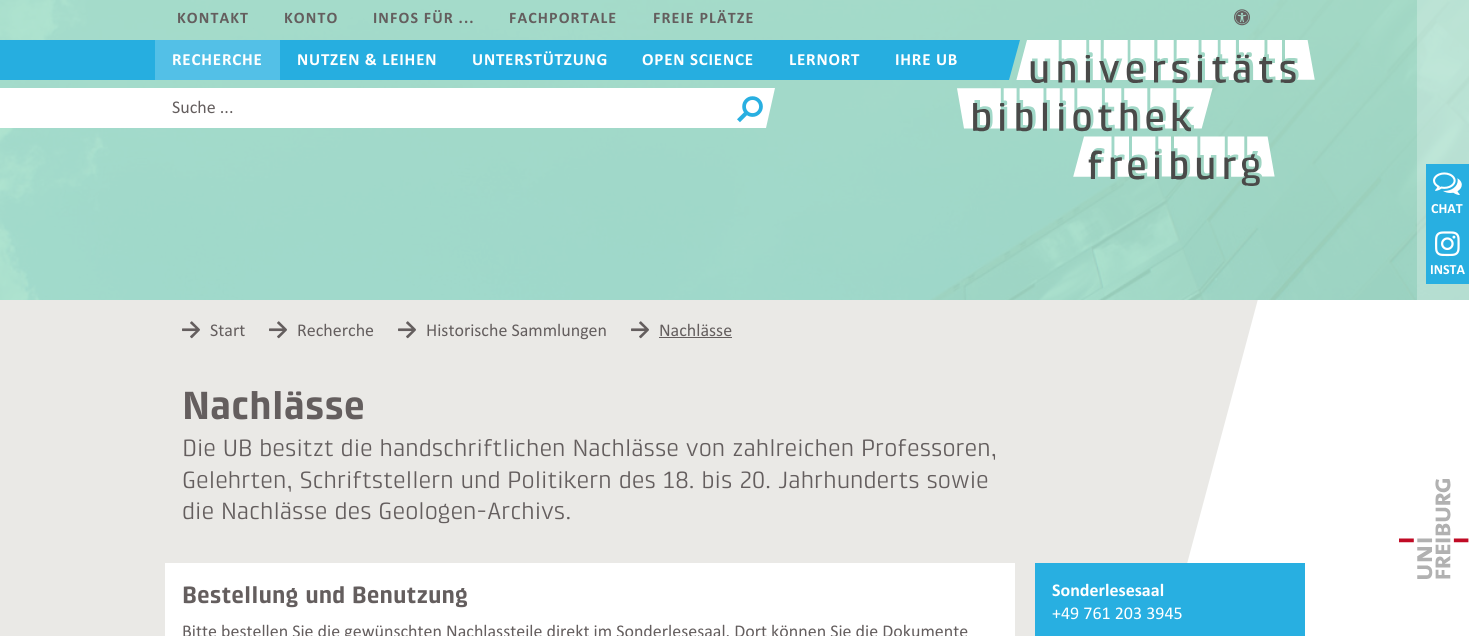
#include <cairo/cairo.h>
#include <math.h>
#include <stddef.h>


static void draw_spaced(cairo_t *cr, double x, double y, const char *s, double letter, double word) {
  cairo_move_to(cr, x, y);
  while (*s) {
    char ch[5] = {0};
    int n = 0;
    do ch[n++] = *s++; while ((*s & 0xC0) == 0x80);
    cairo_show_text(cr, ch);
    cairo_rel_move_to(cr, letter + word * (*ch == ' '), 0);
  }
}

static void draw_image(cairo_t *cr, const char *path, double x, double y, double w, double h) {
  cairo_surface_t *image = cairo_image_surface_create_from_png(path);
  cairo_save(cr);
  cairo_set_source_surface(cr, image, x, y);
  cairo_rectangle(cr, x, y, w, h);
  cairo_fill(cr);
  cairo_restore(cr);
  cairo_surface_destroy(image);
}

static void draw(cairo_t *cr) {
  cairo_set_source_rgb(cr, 1, 1, 1);
  cairo_paint(cr);
  cairo_set_source_rgb(cr, 234 / 255.0, 233 / 255.0, 230 / 255.0);
  cairo_new_path(cr);
  cairo_move_to(cr, -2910, -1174);
  cairo_line_to(cr, 1347, -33);
  cairo_line_to(cr, 853, 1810);
  cairo_line_to(cr, -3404, 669);
  cairo_close_path(cr);
  cairo_fill(cr);
  draw_image(cr, "images/2.png", 0, 0, 1469, 300);
  cairo_set_source_rgba(cr, 1, 1, 1, 0.25);
  cairo_rectangle(cr, 1417, 0, 52, 300);
  cairo_fill(cr);
  draw_image(cr, "images/1.png", 1399, 479, 70, 100);
  draw_image(cr, "images/3.png", 1234, 9, 16, 17);
  cairo_set_source_rgb(cr, 38 / 255.0, 174 / 255.0, 224 / 255.0);
  cairo_new_path(cr);
  cairo_move_to(cr, 1009, 80);
  cairo_line_to(cr, -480, 80);
  cairo_line_to(cr, -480, 40);
  cairo_line_to(cr, 1020, 40);
  cairo_close_path(cr);
  cairo_fill(cr);
  cairo_set_source_rgb(cr, 83 / 255.0, 192 / 255.0, 231 / 255.0);
  cairo_rectangle(cr, 155, 40, 125, 40);
  cairo_fill(cr);
  draw_image(cr, "images/4.png", 957, 40, 358, 146);
  cairo_set_source_rgb(cr, 1, 1, 1);
  cairo_new_path(cr);
  cairo_move_to(cr, 775, 88);
  cairo_line_to(cr, -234, 88);
  cairo_line_to(cr, -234, 128);
  cairo_line_to(cr, 766, 128);
  cairo_close_path(cr);
  cairo_fill(cr);
  draw_image(cr, "images/5.png", 737, 96, 26, 27);
  cairo_set_source_rgb(cr, 40 / 255.0, 175 / 255.0, 225 / 255.0);
  cairo_rectangle(cr, 1426, 164, 43, 120);
  cairo_fill(cr);
  draw_image(cr, "images/6.png", 1433, 172, 29, 23);
  draw_image(cr, "images/7.png", 1435, 231, 25, 26);
  draw_image(cr, "images/8.png", 182, 321, 18, 18);
  draw_image(cr, "images/8.png", 269, 321, 18, 18);
  draw_image(cr, "images/8.png", 398, 321, 18, 18);
  draw_image(cr, "images/8.png", 631, 321, 18, 18);
  cairo_set_source_rgb(cr, 100 / 255.0, 94 / 255.0, 94 / 255.0);
  cairo_rectangle(cr, 659, 337, 73, 1);
  cairo_fill(cr);
  cairo_set_source_rgb(cr, 1, 1, 1);
  cairo_rectangle(cr, 165, 563, 850, 73);
  cairo_fill(cr);
  cairo_set_source_rgb(cr, 40 / 255.0, 175 / 255.0, 225 / 255.0);
  cairo_rectangle(cr, 1035, 563, 270, 73);
  cairo_fill(cr);
  cairo_select_font_face(cr, "Calibri", CAIRO_FONT_SLANT_NORMAL, CAIRO_FONT_WEIGHT_BOLD);
  cairo_set_font_size(cr, 16);
  cairo_set_source_rgb(cr, 100 / 255.0, 94 / 255.0, 94 / 255.0);
  draw_spaced(cr, 177, 23, "KONTAKT", 1.1, 0);
  draw_spaced(cr, 284, 23, "KONTO", 1.1, 0);
  draw_spaced(cr, 373, 23, "INFOS FÜR ...", 1.1, 0);
  draw_spaced(cr, 509, 23, "FACHPORTALE", 1.1, 0);
  draw_spaced(cr, 653, 23, "FREIE PLÄTZE", 1.1, 0);
  cairo_set_font_size(cr, 17);
  cairo_set_source_rgb(cr, 1, 1, 1);
  draw_spaced(cr, 172, 65, "RECHERCHE", 0.8, 0);
  draw_spaced(cr, 297, 65, "NUTZEN & LEIHEN", 0.8, 0);
  draw_spaced(cr, 472, 65, "UNTERSTÜTZUNG", 0.8, 0);
  draw_spaced(cr, 642, 65, "OPEN SCIENCE", 0.8, 0);
  draw_spaced(cr, 789, 65, "LERNORT", 0.8, 0);
  draw_spaced(cr, 895, 65, "IHRE UB", 0.8, 0);
  cairo_select_font_face(cr, "Calibri", CAIRO_FONT_SLANT_NORMAL, CAIRO_FONT_WEIGHT_NORMAL);
  cairo_set_font_size(cr, 18);
  cairo_set_source_rgb(cr, 100 / 255.0, 94 / 255.0, 94 / 255.0);
  cairo_move_to(cr, 172, 113);
  cairo_show_text(cr, "Suche ...");
  cairo_select_font_face(cr, "Calibri", CAIRO_FONT_SLANT_NORMAL, CAIRO_FONT_WEIGHT_BOLD);
  cairo_set_font_size(cr, 14);
  cairo_set_source_rgb(cr, 1, 1, 1);
  cairo_move_to(cr, 1431, 213);
  cairo_show_text(cr, "CHAT");
  cairo_move_to(cr, 1430, 274);
  cairo_show_text(cr, "INSTA");
  cairo_select_font_face(cr, "Calibri", CAIRO_FONT_SLANT_NORMAL, CAIRO_FONT_WEIGHT_NORMAL);
  cairo_set_font_size(cr, 18);
  cairo_set_source_rgb(cr, 100 / 255.0, 94 / 255.0, 94 / 255.0);
  cairo_move_to(cr, 210, 336);
  cairo_show_text(cr, "Start");
  cairo_move_to(cr, 297, 336);
  cairo_show_text(cr, "Recherche");
  cairo_move_to(cr, 426, 336);
  cairo_show_text(cr, "Historische Sammlungen");
  cairo_move_to(cr, 659, 336);
  cairo_show_text(cr, "Nachlässe");
  cairo_select_font_face(cr, "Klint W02", CAIRO_FONT_SLANT_NORMAL, CAIRO_FONT_WEIGHT_BOLD);
  cairo_set_font_size(cr, 40);
  cairo_move_to(cr, 182, 419);
  cairo_show_text(cr, "Nachlässe");
  cairo_select_font_face(cr, "Klint W02", CAIRO_FONT_SLANT_NORMAL, CAIRO_FONT_WEIGHT_NORMAL);
  cairo_set_font_size(cr, 24);
  cairo_move_to(cr, 182, 456);
  cairo_show_text(cr, "Die UB besitzt die handschriftlichen Nachlässe von zahlreichen Professoren,");
  cairo_move_to(cr, 182, 488);
  cairo_show_text(cr, "Gelehrten, Schriftstellern und Politikern des 18. bis 20. Jahrhunderts sowie");
  cairo_move_to(cr, 182, 519);
  cairo_show_text(cr, "die Nachlässe des Geologen-Archivs.");
  cairo_select_font_face(cr, "Klint W02", CAIRO_FONT_SLANT_NORMAL, CAIRO_FONT_WEIGHT_BOLD);
  cairo_move_to(cr, 182, 603);
  cairo_show_text(cr, "Bestellung und Benutzung");
  cairo_select_font_face(cr, "Calibri", CAIRO_FONT_SLANT_NORMAL, CAIRO_FONT_WEIGHT_NORMAL);
  cairo_set_font_size(cr, 18);
  cairo_move_to(cr, 182, 637);
  cairo_show_text(cr, "Bitte bestellen Sie die gewünschten Nachlassteile direkt im Sonderlesesaal. Dort können Sie die Dokumente");
  cairo_select_font_face(cr, "Calibri", CAIRO_FONT_SLANT_NORMAL, CAIRO_FONT_WEIGHT_BOLD);
  cairo_set_source_rgb(cr, 1, 1, 1);
  cairo_move_to(cr, 1052, 596);
  cairo_show_text(cr, "Sonderlesesaal");
  cairo_select_font_face(cr, "Calibri", CAIRO_FONT_SLANT_NORMAL, CAIRO_FONT_WEIGHT_NORMAL);
  cairo_move_to(cr, 1052, 619);
  cairo_show_text(cr, "+49 761 203 3945");
}

int main(void) {
  cairo_surface_t *surface = cairo_image_surface_create(CAIRO_FORMAT_RGB24, 1469, 636);
  cairo_t *cr = cairo_create(surface);
  cairo_font_options_t *options = cairo_font_options_create();
  cairo_font_options_set_hint_metrics(options, CAIRO_HINT_METRICS_OFF);
  cairo_font_options_set_hint_style(options, CAIRO_HINT_STYLE_NONE);
  cairo_set_font_options(cr, options);
  cairo_set_miter_limit(cr, 4);
  draw(cr);
  cairo_surface_write_to_png(surface, "out.png");
  cairo_font_options_destroy(options);
  cairo_destroy(cr);
  cairo_surface_destroy(surface);
  return 0;
}
